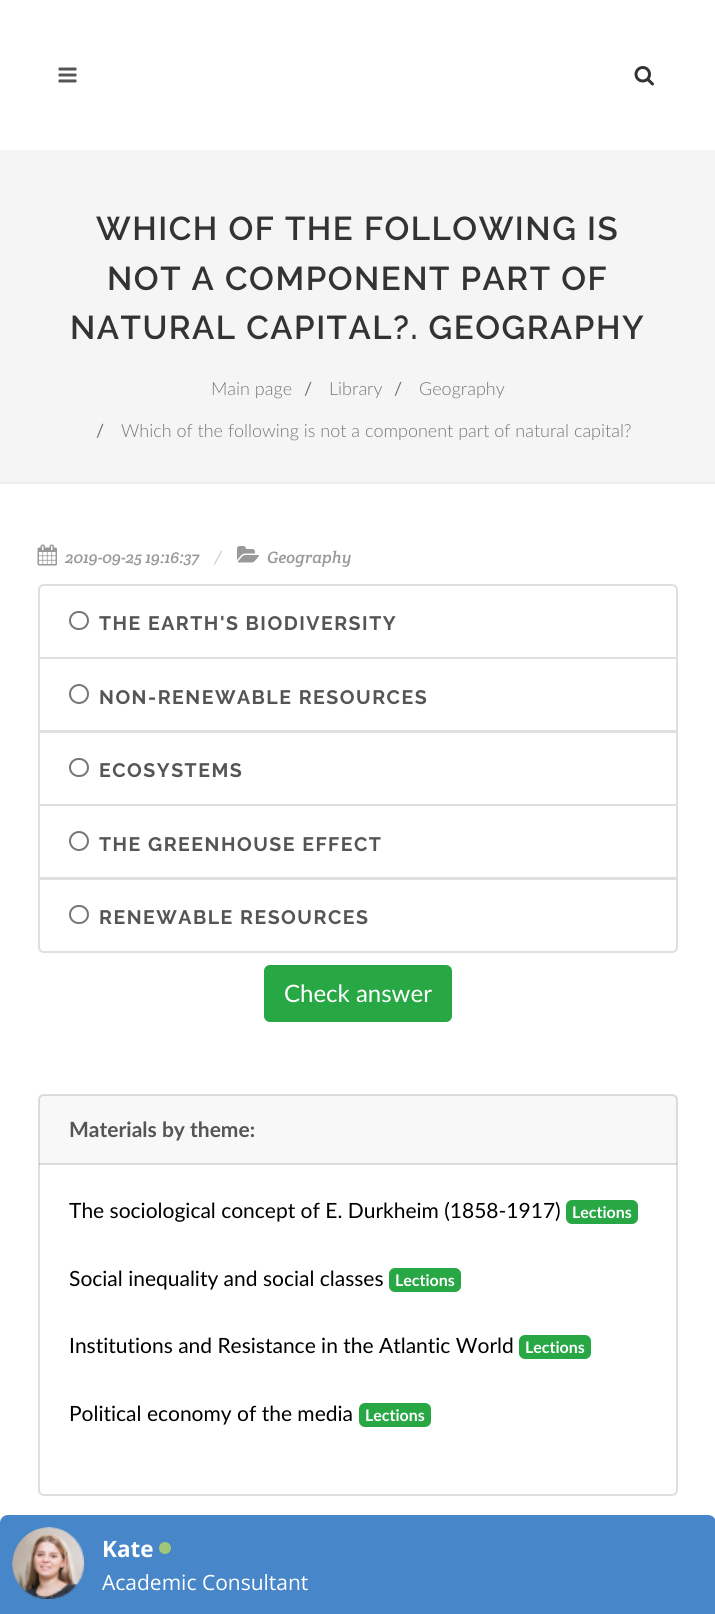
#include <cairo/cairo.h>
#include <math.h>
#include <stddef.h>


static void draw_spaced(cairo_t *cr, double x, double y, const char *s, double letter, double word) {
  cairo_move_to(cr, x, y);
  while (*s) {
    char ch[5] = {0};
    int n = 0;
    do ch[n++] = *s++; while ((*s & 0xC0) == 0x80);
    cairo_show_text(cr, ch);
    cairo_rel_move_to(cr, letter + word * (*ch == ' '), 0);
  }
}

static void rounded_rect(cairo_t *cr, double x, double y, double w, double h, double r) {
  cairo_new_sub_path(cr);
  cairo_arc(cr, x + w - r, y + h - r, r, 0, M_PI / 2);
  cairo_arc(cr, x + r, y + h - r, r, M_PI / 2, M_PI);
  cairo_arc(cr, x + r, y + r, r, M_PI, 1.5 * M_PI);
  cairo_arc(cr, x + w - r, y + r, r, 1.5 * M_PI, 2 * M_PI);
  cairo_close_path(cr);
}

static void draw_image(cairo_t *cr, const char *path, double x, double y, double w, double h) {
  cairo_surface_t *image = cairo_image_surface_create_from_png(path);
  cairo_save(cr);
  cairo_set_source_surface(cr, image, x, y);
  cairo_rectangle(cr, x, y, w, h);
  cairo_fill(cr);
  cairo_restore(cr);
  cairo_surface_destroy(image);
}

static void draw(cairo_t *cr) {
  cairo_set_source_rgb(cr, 1, 1, 1);
  cairo_paint(cr);
  cairo_set_source_rgb(cr, 245 / 255.0, 245 / 255.0, 245 / 255.0);
  cairo_rectangle(cr, 0, 150, 715, 332);
  cairo_fill(cr);
  draw_image(cr, "images/1.png", 58, 67, 19, 16);
  draw_image(cr, "images/2.png", 634, 66, 20, 20);
  cairo_set_source_rgb(cr, 238 / 255.0, 238 / 255.0, 238 / 255.0);
  cairo_rectangle(cr, 0, 482, 715, 2);
  cairo_fill(cr);
  draw_image(cr, "images/3.png", 37, 544, 20, 22);
  draw_image(cr, "images/4.png", 237, 546, 22, 17);
  cairo_new_path(cr);
  cairo_move_to(cr, 44, 585);
  cairo_line_to(cr, 672, 585);
  cairo_curve_to(cr, 675, 585, 677, 587, 677, 590);
  cairo_line_to(cr, 677, 658);
  cairo_line_to(cr, 39, 658);
  cairo_line_to(cr, 39, 590);
  cairo_curve_to(cr, 39, 587, 41, 585, 44, 585);
  cairo_close_path(cr);
  cairo_set_source_rgb(cr, 223 / 255.0, 223 / 255.0, 223 / 255.0);
  cairo_stroke(cr);
  rounded_rect(cr, 70, 612, 18, 17, 8.5);
  cairo_set_source_rgb(cr, 118 / 255.0, 118 / 255.0, 118 / 255.0);
  cairo_stroke(cr);
  cairo_rectangle(cr, 39, 658, 638, 73);
  cairo_set_source_rgb(cr, 223 / 255.0, 223 / 255.0, 223 / 255.0);
  cairo_stroke(cr);
  cairo_arc(cr, 79, 694, 9, 0, 2 * M_PI);
  cairo_set_source_rgb(cr, 118 / 255.0, 118 / 255.0, 118 / 255.0);
  cairo_stroke(cr);
  cairo_rectangle(cr, 39, 732, 638, 73);
  cairo_set_source_rgb(cr, 223 / 255.0, 223 / 255.0, 223 / 255.0);
  cairo_stroke(cr);
  rounded_rect(cr, 70, 759, 18, 17, 8.5);
  cairo_set_source_rgb(cr, 118 / 255.0, 118 / 255.0, 118 / 255.0);
  cairo_stroke(cr);
  cairo_rectangle(cr, 39, 805, 638, 73);
  cairo_set_source_rgb(cr, 223 / 255.0, 223 / 255.0, 223 / 255.0);
  cairo_stroke(cr);
  cairo_arc(cr, 79, 841, 9, 0, 2 * M_PI);
  cairo_set_source_rgb(cr, 118 / 255.0, 118 / 255.0, 118 / 255.0);
  cairo_stroke(cr);
  cairo_set_source_rgb(cr, 1, 1, 1);
  cairo_new_path(cr);
  cairo_move_to(cr, 39, 879);
  cairo_line_to(cr, 677, 879);
  cairo_line_to(cr, 677, 947);
  cairo_curve_to(cr, 677, 950, 675, 952, 672, 952);
  cairo_line_to(cr, 44, 952);
  cairo_curve_to(cr, 41, 952, 39, 950, 39, 947);
  cairo_close_path(cr);
  cairo_fill_preserve(cr);
  cairo_set_source_rgb(cr, 223 / 255.0, 223 / 255.0, 223 / 255.0);
  cairo_stroke(cr);
  rounded_rect(cr, 70, 906, 18, 17, 8.5);
  cairo_set_source_rgb(cr, 118 / 255.0, 118 / 255.0, 118 / 255.0);
  cairo_stroke(cr);
  cairo_set_source_rgb(cr, 40 / 255.0, 167 / 255.0, 69 / 255.0);
  rounded_rect(cr, 265, 966, 186, 55, 5);
  cairo_fill_preserve(cr);
  cairo_stroke(cr);
  rounded_rect(cr, 39, 1095, 638, 400, 5);
  cairo_set_source_rgb(cr, 223 / 255.0, 223 / 255.0, 223 / 255.0);
  cairo_stroke(cr);
  cairo_set_source_rgba(cr, 0, 0, 0, 0.03);
  cairo_rectangle(cr, 39, 1095, 638, 69);
  cairo_fill(cr);
  cairo_set_source_rgba(cr, 0, 0, 0, 0.12);
  cairo_rectangle(cr, 39, 1163, 638, 2);
  cairo_fill(cr);
  cairo_set_source_rgb(cr, 40 / 255.0, 167 / 255.0, 69 / 255.0);
  rounded_rect(cr, 566, 1200, 72, 24, 6);
  cairo_fill(cr);
  rounded_rect(cr, 389, 1268, 72, 24, 6);
  cairo_fill(cr);
  rounded_rect(cr, 519, 1335, 72, 24, 6);
  cairo_fill(cr);
  rounded_rect(cr, 359, 1403, 72, 24, 6);
  cairo_fill(cr);
  cairo_set_source_rgb(cr, 71 / 255.0, 134 / 255.0, 200 / 255.0);
  cairo_new_path(cr);
  cairo_move_to(cr, 8, 1515);
  cairo_line_to(cr, 708, 1515);
  cairo_curve_to(cr, 712.5, 1515, 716, 1518.5, 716, 1523);
  cairo_line_to(cr, 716, 1614);
  cairo_line_to(cr, 0, 1614);
  cairo_line_to(cr, 0, 1523);
  cairo_curve_to(cr, 0, 1518.5, 3.5, 1515, 8, 1515);
  cairo_close_path(cr);
  cairo_fill(cr);
  draw_image(cr, "images/5.png", 12, 1527, 72, 72);
  cairo_set_source_rgb(cr, 162 / 255.0, 198 / 255.0, 121 / 255.0);
  cairo_arc(cr, 165, 1548, 6, 0, 2 * M_PI);
  cairo_fill(cr);
  cairo_select_font_face(cr, "Raleway SemiBold", CAIRO_FONT_SLANT_NORMAL, CAIRO_FONT_WEIGHT_NORMAL);
  cairo_set_font_size(cr, 33);
  cairo_set_source_rgb(cr, 51 / 255.0, 51 / 255.0, 51 / 255.0);
  draw_spaced(cr, 96, 240, "WHICH OF THE FOLLOWING IS", 1.5, 0);
  draw_spaced(cr, 107, 290, "NOT A COMPONENT PART OF", 1.5, 0);
  draw_spaced(cr, 70, 339, "NATURAL CAPITAL?. GEOGRAPHY", 1.5, 0);
  cairo_select_font_face(cr, "Lato Light", CAIRO_FONT_SLANT_NORMAL, CAIRO_FONT_WEIGHT_NORMAL);
  cairo_set_font_size(cr, 18);
  cairo_set_source_rgb(cr, 119 / 255.0, 119 / 255.0, 119 / 255.0);
  cairo_move_to(cr, 211, 395);
  cairo_show_text(cr, "Main page");
  cairo_select_font_face(cr, "Lato", CAIRO_FONT_SLANT_NORMAL, CAIRO_FONT_WEIGHT_NORMAL);
  cairo_set_source_rgb(cr, 108 / 255.0, 117 / 255.0, 125 / 255.0);
  cairo_move_to(cr, 304, 395);
  cairo_show_text(cr, "/");
  cairo_select_font_face(cr, "Lato Light", CAIRO_FONT_SLANT_NORMAL, CAIRO_FONT_WEIGHT_NORMAL);
  cairo_set_source_rgb(cr, 119 / 255.0, 119 / 255.0, 119 / 255.0);
  cairo_move_to(cr, 329, 395);
  cairo_show_text(cr, "Library");
  cairo_select_font_face(cr, "Lato", CAIRO_FONT_SLANT_NORMAL, CAIRO_FONT_WEIGHT_NORMAL);
  cairo_set_source_rgb(cr, 108 / 255.0, 117 / 255.0, 125 / 255.0);
  cairo_move_to(cr, 394, 395);
  cairo_show_text(cr, "/");
  cairo_select_font_face(cr, "Lato Light", CAIRO_FONT_SLANT_NORMAL, CAIRO_FONT_WEIGHT_NORMAL);
  cairo_set_source_rgb(cr, 119 / 255.0, 119 / 255.0, 119 / 255.0);
  cairo_move_to(cr, 419, 395);
  cairo_show_text(cr, "Geography");
  cairo_select_font_face(cr, "Lato", CAIRO_FONT_SLANT_NORMAL, CAIRO_FONT_WEIGHT_NORMAL);
  cairo_set_source_rgb(cr, 108 / 255.0, 117 / 255.0, 125 / 255.0);
  cairo_move_to(cr, 96, 437);
  cairo_show_text(cr, "/");
  cairo_select_font_face(cr, "Lato Light", CAIRO_FONT_SLANT_NORMAL, CAIRO_FONT_WEIGHT_NORMAL);
  cairo_set_source_rgb(cr, 119 / 255.0, 119 / 255.0, 119 / 255.0);
  cairo_move_to(cr, 121, 437);
  cairo_show_text(cr, "Which of the following is not a component part of natural capital?");
  cairo_select_font_face(cr, "Crete Round", CAIRO_FONT_SLANT_ITALIC, CAIRO_FONT_WEIGHT_NORMAL);
  cairo_set_font_size(cr, 16.5);
  cairo_set_source_rgb(cr, 153 / 255.0, 153 / 255.0, 153 / 255.0);
  cairo_move_to(cr, 65, 563);
  cairo_show_text(cr, "2019-09-25 19:16:37");
  cairo_set_source_rgb(cr, 204 / 255.0, 204 / 255.0, 204 / 255.0);
  cairo_move_to(cr, 214, 563);
  cairo_show_text(cr, "/");
  cairo_set_source_rgb(cr, 153 / 255.0, 153 / 255.0, 153 / 255.0);
  cairo_move_to(cr, 267, 563);
  cairo_show_text(cr, "Geography");
  cairo_select_font_face(cr, "Raleway", CAIRO_FONT_SLANT_NORMAL, CAIRO_FONT_WEIGHT_BOLD);
  cairo_set_font_size(cr, 19.5);
  cairo_set_source_rgb(cr, 85 / 255.0, 85 / 255.0, 85 / 255.0);
  draw_spaced(cr, 99, 630, "THE EARTH'S BIODIVERSITY", 1.5, 0);
  draw_spaced(cr, 99, 704, "NON-RENEWABLE RESOURCES", 1.5, 0);
  draw_spaced(cr, 99, 777, "ECOSYSTEMS", 1.5, 0);
  draw_spaced(cr, 99, 851, "THE GREENHOUSE EFFECT", 1.5, 0);
  draw_spaced(cr, 99, 924, "RENEWABLE RESOURCES", 1.5, 0);
  cairo_select_font_face(cr, "Lato", CAIRO_FONT_SLANT_NORMAL, CAIRO_FONT_WEIGHT_NORMAL);
  cairo_set_font_size(cr, 24);
  cairo_set_source_rgb(cr, 1, 1, 1);
  cairo_move_to(cr, 284, 1002);
  cairo_show_text(cr, "Check answer");
  cairo_select_font_face(cr, "Lato", CAIRO_FONT_SLANT_NORMAL, CAIRO_FONT_WEIGHT_BOLD);
  cairo_set_font_size(cr, 21);
  cairo_set_source_rgb(cr, 85 / 255.0, 85 / 255.0, 85 / 255.0);
  cairo_move_to(cr, 69, 1137);
  cairo_show_text(cr, "Materials by theme:");
  cairo_select_font_face(cr, "Lato", CAIRO_FONT_SLANT_NORMAL, CAIRO_FONT_WEIGHT_NORMAL);
  cairo_set_source_rgb(cr, 0, 0, 0);
  cairo_move_to(cr, 69, 1218);
  cairo_show_text(cr, "The sociological concept of E. Durkheim (1858-1917)");
  cairo_select_font_face(cr, "Lato", CAIRO_FONT_SLANT_NORMAL, CAIRO_FONT_WEIGHT_BOLD);
  cairo_set_font_size(cr, 16);
  cairo_set_source_rgb(cr, 1, 1, 1);
  cairo_move_to(cr, 572, 1218);
  cairo_show_text(cr, "Lections");
  cairo_select_font_face(cr, "Lato", CAIRO_FONT_SLANT_NORMAL, CAIRO_FONT_WEIGHT_NORMAL);
  cairo_set_font_size(cr, 21);
  cairo_set_source_rgb(cr, 0, 0, 0);
  cairo_move_to(cr, 69, 1286);
  cairo_show_text(cr, "Social inequality and social classes");
  cairo_select_font_face(cr, "Lato", CAIRO_FONT_SLANT_NORMAL, CAIRO_FONT_WEIGHT_BOLD);
  cairo_set_font_size(cr, 16);
  cairo_set_source_rgb(cr, 1, 1, 1);
  cairo_move_to(cr, 395, 1286);
  cairo_show_text(cr, "Lections");
  cairo_select_font_face(cr, "Lato", CAIRO_FONT_SLANT_NORMAL, CAIRO_FONT_WEIGHT_NORMAL);
  cairo_set_font_size(cr, 21);
  cairo_set_source_rgb(cr, 0, 0, 0);
  cairo_move_to(cr, 69, 1353);
  cairo_show_text(cr, "Institutions and Resistance in the Atlantic World");
  cairo_select_font_face(cr, "Lato", CAIRO_FONT_SLANT_NORMAL, CAIRO_FONT_WEIGHT_BOLD);
  cairo_set_font_size(cr, 16);
  cairo_set_source_rgb(cr, 1, 1, 1);
  cairo_move_to(cr, 525, 1353);
  cairo_show_text(cr, "Lections");
  cairo_select_font_face(cr, "Lato", CAIRO_FONT_SLANT_NORMAL, CAIRO_FONT_WEIGHT_NORMAL);
  cairo_set_font_size(cr, 21);
  cairo_set_source_rgb(cr, 0, 0, 0);
  cairo_move_to(cr, 69, 1421);
  cairo_show_text(cr, "Political economy of the media");
  cairo_select_font_face(cr, "Lato", CAIRO_FONT_SLANT_NORMAL, CAIRO_FONT_WEIGHT_BOLD);
  cairo_set_font_size(cr, 16);
  cairo_set_source_rgb(cr, 1, 1, 1);
  cairo_move_to(cr, 365, 1421);
  cairo_show_text(cr, "Lections");
  cairo_select_font_face(cr, "Open Sans", CAIRO_FONT_SLANT_NORMAL, CAIRO_FONT_WEIGHT_BOLD);
  cairo_set_font_size(cr, 22.5);
  cairo_move_to(cr, 102, 1557);
  cairo_show_text(cr, "Kate");
  cairo_select_font_face(cr, "Open Sans", CAIRO_FONT_SLANT_NORMAL, CAIRO_FONT_WEIGHT_NORMAL);
  cairo_set_font_size(cr, 21);
  cairo_move_to(cr, 102, 1590);
  cairo_show_text(cr, "Academic Consultant");
}

int main(void) {
  cairo_surface_t *surface = cairo_image_surface_create(CAIRO_FORMAT_RGB24, 715, 1614);
  cairo_t *cr = cairo_create(surface);
  cairo_font_options_t *options = cairo_font_options_create();
  cairo_font_options_set_hint_metrics(options, CAIRO_HINT_METRICS_OFF);
  cairo_font_options_set_hint_style(options, CAIRO_HINT_STYLE_NONE);
  cairo_set_font_options(cr, options);
  cairo_set_miter_limit(cr, 4);
  draw(cr);
  cairo_surface_write_to_png(surface, "out.png");
  cairo_font_options_destroy(options);
  cairo_destroy(cr);
  cairo_surface_destroy(surface);
  return 0;
}
